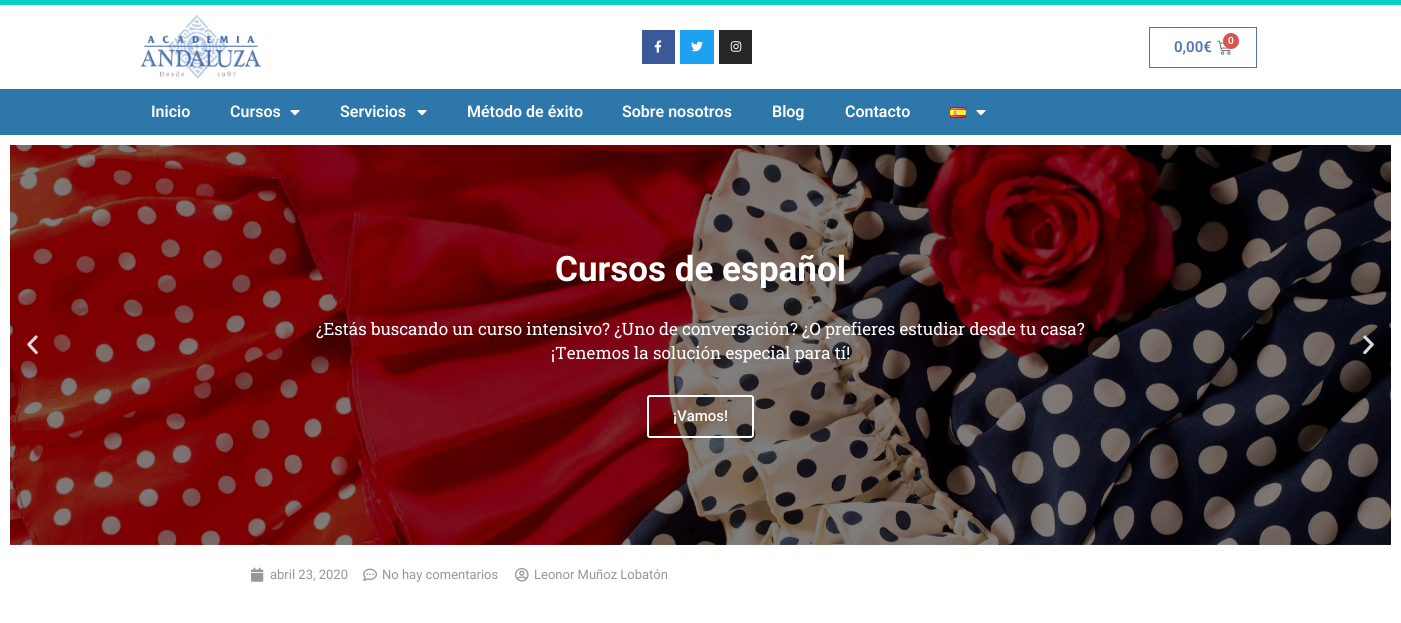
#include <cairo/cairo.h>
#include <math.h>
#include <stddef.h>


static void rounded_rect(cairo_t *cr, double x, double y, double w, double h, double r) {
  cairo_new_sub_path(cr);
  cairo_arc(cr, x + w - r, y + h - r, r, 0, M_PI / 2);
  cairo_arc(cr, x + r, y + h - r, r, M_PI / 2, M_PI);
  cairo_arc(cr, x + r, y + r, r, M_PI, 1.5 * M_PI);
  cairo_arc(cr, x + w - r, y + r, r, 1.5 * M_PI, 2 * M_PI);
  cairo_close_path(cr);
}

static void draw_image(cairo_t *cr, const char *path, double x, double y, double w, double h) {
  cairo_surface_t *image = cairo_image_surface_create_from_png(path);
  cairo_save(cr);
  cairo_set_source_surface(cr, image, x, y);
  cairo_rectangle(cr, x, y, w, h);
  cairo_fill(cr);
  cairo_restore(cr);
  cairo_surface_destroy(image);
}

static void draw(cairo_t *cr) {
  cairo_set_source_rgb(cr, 1, 1, 1);
  cairo_paint(cr);
  cairo_set_source_rgb(cr, 2 / 255.0, 211 / 255.0, 201 / 255.0);
  cairo_rectangle(cr, 0, 0, 1401, 5);
  cairo_fill(cr);
  draw_image(cr, "images/1.png", 141, 15, 120, 64);
  cairo_set_source_rgb(cr, 59 / 255.0, 89 / 255.0, 152 / 255.0);
  cairo_rectangle(cr, 642, 30, 33, 34);
  cairo_fill(cr);
  draw_image(cr, "images/2.png", 654, 40, 8, 13);
  cairo_set_source_rgb(cr, 29 / 255.0, 161 / 255.0, 242 / 255.0);
  cairo_rectangle(cr, 680, 30, 34, 34);
  cairo_fill(cr);
  draw_image(cr, "images/3.png", 691, 41, 12, 11);
  cairo_set_source_rgb(cr, 38 / 255.0, 38 / 255.0, 38 / 255.0);
  cairo_rectangle(cr, 719, 30, 33, 34);
  cairo_fill(cr);
  draw_image(cr, "images/4.png", 730, 41, 12, 11);
  cairo_rectangle(cr, 1149.5, 27.5, 107, 40);
  cairo_set_source_rgb(cr, 81 / 255.0, 118 / 255.0, 175 / 255.0);
  cairo_set_line_width(cr, 1);
  cairo_stroke(cr);
  draw_image(cr, "images/5.png", 1217, 40, 14, 15);
  cairo_set_source_rgb(cr, 217 / 255.0, 83 / 255.0, 79 / 255.0);
  cairo_arc(cr, 1231, 41, 8, 0, 2 * M_PI);
  cairo_fill(cr);
  cairo_set_source_rgb(cr, 45 / 255.0, 119 / 255.0, 170 / 255.0);
  cairo_rectangle(cr, 0, 89, 1401, 46);
  cairo_fill(cr);
  draw_image(cr, "images/6.png", 290, 110, 10, 6);
  draw_image(cr, "images/6.png", 417, 110, 10, 6);
  draw_image(cr, "images/7.png", 950, 107, 16, 11);
  draw_image(cr, "images/6.png", 976, 110, 10, 6);
  draw_image(cr, "images/9.png", 10, 145, 1381, 400);
  draw_image(cr, "images/8.png", 27, 335, 11, 20);
  rounded_rect(cr, 648, 396, 105, 41, 2);
  cairo_set_source_rgb(cr, 1, 1, 1);
  cairo_set_line_width(cr, 2);
  cairo_stroke(cr);
  draw_image(cr, "images/10.png", 1363, 335, 11, 20);
  cairo_set_source_rgb(cr, 0, 0, 0);
  cairo_arc(cr, 692, 530, 3, 0, 2 * M_PI);
  cairo_fill(cr);
  cairo_set_source_rgb(cr, 6 / 255.0, 2 / 255.0, 6 / 255.0);
  cairo_arc(cr, 710, 530, 3, 0, 2 * M_PI);
  cairo_fill(cr);
  draw_image(cr, "images/11.png", 251, 567, 13, 15);
  draw_image(cr, "images/12.png", 363, 568, 14, 13);
  draw_image(cr, "images/13.png", 515, 568, 14, 14);
  cairo_select_font_face(cr, "Roboto SemiBold", CAIRO_FONT_SLANT_NORMAL, CAIRO_FONT_WEIGHT_NORMAL);
  cairo_set_font_size(cr, 15);
  cairo_set_source_rgb(cr, 81 / 255.0, 118 / 255.0, 175 / 255.0);
  cairo_move_to(cr, 1174, 52);
  cairo_show_text(cr, "0,00€");
  cairo_set_font_size(cr, 10);
  cairo_set_source_rgb(cr, 1, 1, 1);
  cairo_move_to(cr, 1228, 44);
  cairo_show_text(cr, "0");
  cairo_set_font_size(cr, 16);
  cairo_move_to(cr, 151, 117);
  cairo_show_text(cr, "Inicio");
  cairo_move_to(cr, 230, 117);
  cairo_show_text(cr, "Cursos");
  cairo_move_to(cr, 340, 117);
  cairo_show_text(cr, "Servicios");
  cairo_move_to(cr, 467, 117);
  cairo_show_text(cr, "Método de éxito");
  cairo_move_to(cr, 622, 117);
  cairo_show_text(cr, "Sobre nosotros");
  cairo_move_to(cr, 772, 117);
  cairo_show_text(cr, "Blog");
  cairo_move_to(cr, 845, 117);
  cairo_show_text(cr, "Contacto");
  cairo_select_font_face(cr, "Roboto", CAIRO_FONT_SLANT_NORMAL, CAIRO_FONT_WEIGHT_BOLD);
  cairo_set_font_size(cr, 35);
  cairo_move_to(cr, 555, 281);
  cairo_show_text(cr, "Cursos de español");
  cairo_select_font_face(cr, "Roboto Slab", CAIRO_FONT_SLANT_NORMAL, CAIRO_FONT_WEIGHT_NORMAL);
  cairo_set_font_size(cr, 17);
  cairo_move_to(cr, 316, 335);
  cairo_show_text(cr, "¿Estás buscando un curso intensivo? ¿Uno de conversación? ¿O prefieres estudiar desde tu casa?");
  cairo_move_to(cr, 551, 359);
  cairo_show_text(cr, "¡Tenemos la solución especial para tí!");
  cairo_select_font_face(cr, "Roboto Medium", CAIRO_FONT_SLANT_NORMAL, CAIRO_FONT_WEIGHT_NORMAL);
  cairo_set_font_size(cr, 15);
  cairo_move_to(cr, 673, 421);
  cairo_show_text(cr, "¡Vamos!");
  cairo_select_font_face(cr, "Roboto", CAIRO_FONT_SLANT_NORMAL, CAIRO_FONT_WEIGHT_NORMAL);
  cairo_set_font_size(cr, 13);
  cairo_set_source_rgb(cr, 150 / 255.0, 150 / 255.0, 150 / 255.0);
  cairo_move_to(cr, 270, 579);
  cairo_show_text(cr, "abril 23, 2020");
  cairo_move_to(cr, 382, 579);
  cairo_show_text(cr, "No hay comentarios");
  cairo_move_to(cr, 534, 579);
  cairo_show_text(cr, "Leonor Muñoz Lobatón");
}

int main(void) {
  cairo_surface_t *surface = cairo_image_surface_create(CAIRO_FORMAT_RGB24, 1401, 623);
  cairo_t *cr = cairo_create(surface);
  cairo_font_options_t *options = cairo_font_options_create();
  cairo_font_options_set_hint_metrics(options, CAIRO_HINT_METRICS_OFF);
  cairo_font_options_set_hint_style(options, CAIRO_HINT_STYLE_NONE);
  cairo_set_font_options(cr, options);
  cairo_set_miter_limit(cr, 4);
  draw(cr);
  cairo_surface_write_to_png(surface, "out.png");
  cairo_font_options_destroy(options);
  cairo_destroy(cr);
  cairo_surface_destroy(surface);
  return 0;
}
